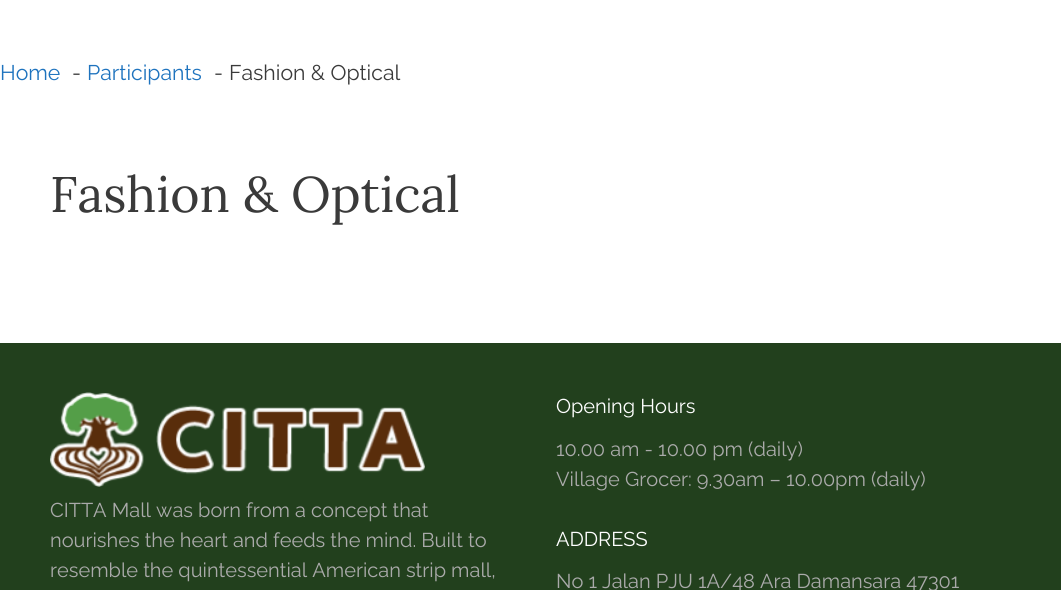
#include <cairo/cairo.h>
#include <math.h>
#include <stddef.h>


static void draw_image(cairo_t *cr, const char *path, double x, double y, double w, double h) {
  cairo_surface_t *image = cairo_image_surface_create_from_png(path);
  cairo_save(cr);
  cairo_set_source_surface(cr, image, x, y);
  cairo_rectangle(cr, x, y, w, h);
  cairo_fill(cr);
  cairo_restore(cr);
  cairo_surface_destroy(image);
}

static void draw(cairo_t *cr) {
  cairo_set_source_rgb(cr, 1, 1, 1);
  cairo_paint(cr);
  cairo_set_source_rgb(cr, 34 / 255.0, 64 / 255.0, 29 / 255.0);
  cairo_rectangle(cr, 0, 343, 1061, 247);
  cairo_fill(cr);
  draw_image(cr, "images/1.png", 50, 392, 375, 95);
  cairo_select_font_face(cr, "Raleway", CAIRO_FONT_SLANT_NORMAL, CAIRO_FONT_WEIGHT_NORMAL);
  cairo_set_font_size(cr, 21.25);
  cairo_set_source_rgb(cr, 30 / 255.0, 115 / 255.0, 190 / 255.0);
  cairo_move_to(cr, 0, 80);
  cairo_show_text(cr, "Home");
  cairo_set_source_rgb(cr, 58 / 255.0, 58 / 255.0, 58 / 255.0);
  cairo_move_to(cr, 72, 80);
  cairo_show_text(cr, "-");
  cairo_set_source_rgb(cr, 30 / 255.0, 115 / 255.0, 190 / 255.0);
  cairo_move_to(cr, 87, 80);
  cairo_show_text(cr, "Participants");
  cairo_set_source_rgb(cr, 58 / 255.0, 58 / 255.0, 58 / 255.0);
  cairo_move_to(cr, 214, 80);
  cairo_show_text(cr, "-");
  cairo_move_to(cr, 229, 80);
  cairo_show_text(cr, "Fashion & Optical");
  cairo_select_font_face(cr, "Lora", CAIRO_FONT_SLANT_NORMAL, CAIRO_FONT_WEIGHT_NORMAL);
  cairo_set_font_size(cr, 50);
  cairo_move_to(cr, 50, 212);
  cairo_show_text(cr, "Fashion & Optical");
  cairo_select_font_face(cr, "Raleway", CAIRO_FONT_SLANT_NORMAL, CAIRO_FONT_WEIGHT_NORMAL);
  cairo_set_font_size(cr, 20);
  cairo_set_source_rgb(cr, 170 / 255.0, 170 / 255.0, 170 / 255.0);
  cairo_move_to(cr, 50, 517);
  cairo_show_text(cr, "CITTA Mall was born from a concept that");
  cairo_move_to(cr, 50, 547);
  cairo_show_text(cr, "nourishes the heart and feeds the mind. Built to");
  cairo_move_to(cr, 50, 577);
  cairo_show_text(cr, "resemble the quintessential American strip mall,");
  cairo_set_source_rgb(cr, 1, 1, 1);
  cairo_move_to(cr, 556, 413);
  cairo_show_text(cr, "Opening Hours");
  cairo_set_source_rgb(cr, 170 / 255.0, 170 / 255.0, 170 / 255.0);
  cairo_move_to(cr, 556, 456);
  cairo_show_text(cr, "10.00 am - 10.00 pm (daily)");
  cairo_move_to(cr, 556, 486);
  cairo_show_text(cr, "Village Grocer: 9.30am – 10.00pm (daily)");
  cairo_set_source_rgb(cr, 1, 1, 1);
  cairo_move_to(cr, 556, 546);
  cairo_show_text(cr, "ADDRESS");
  cairo_set_source_rgb(cr, 170 / 255.0, 170 / 255.0, 170 / 255.0);
  cairo_move_to(cr, 556, 588);
  cairo_show_text(cr, "No 1 Jalan PJU 1A/48 Ara Damansara 47301");
}

int main(void) {
  cairo_surface_t *surface = cairo_image_surface_create(CAIRO_FORMAT_RGB24, 1061, 590);
  cairo_t *cr = cairo_create(surface);
  cairo_font_options_t *options = cairo_font_options_create();
  cairo_font_options_set_hint_metrics(options, CAIRO_HINT_METRICS_OFF);
  cairo_font_options_set_hint_style(options, CAIRO_HINT_STYLE_NONE);
  cairo_set_font_options(cr, options);
  cairo_set_miter_limit(cr, 4);
  draw(cr);
  cairo_surface_write_to_png(surface, "out.png");
  cairo_font_options_destroy(options);
  cairo_destroy(cr);
  cairo_surface_destroy(surface);
  return 0;
}
